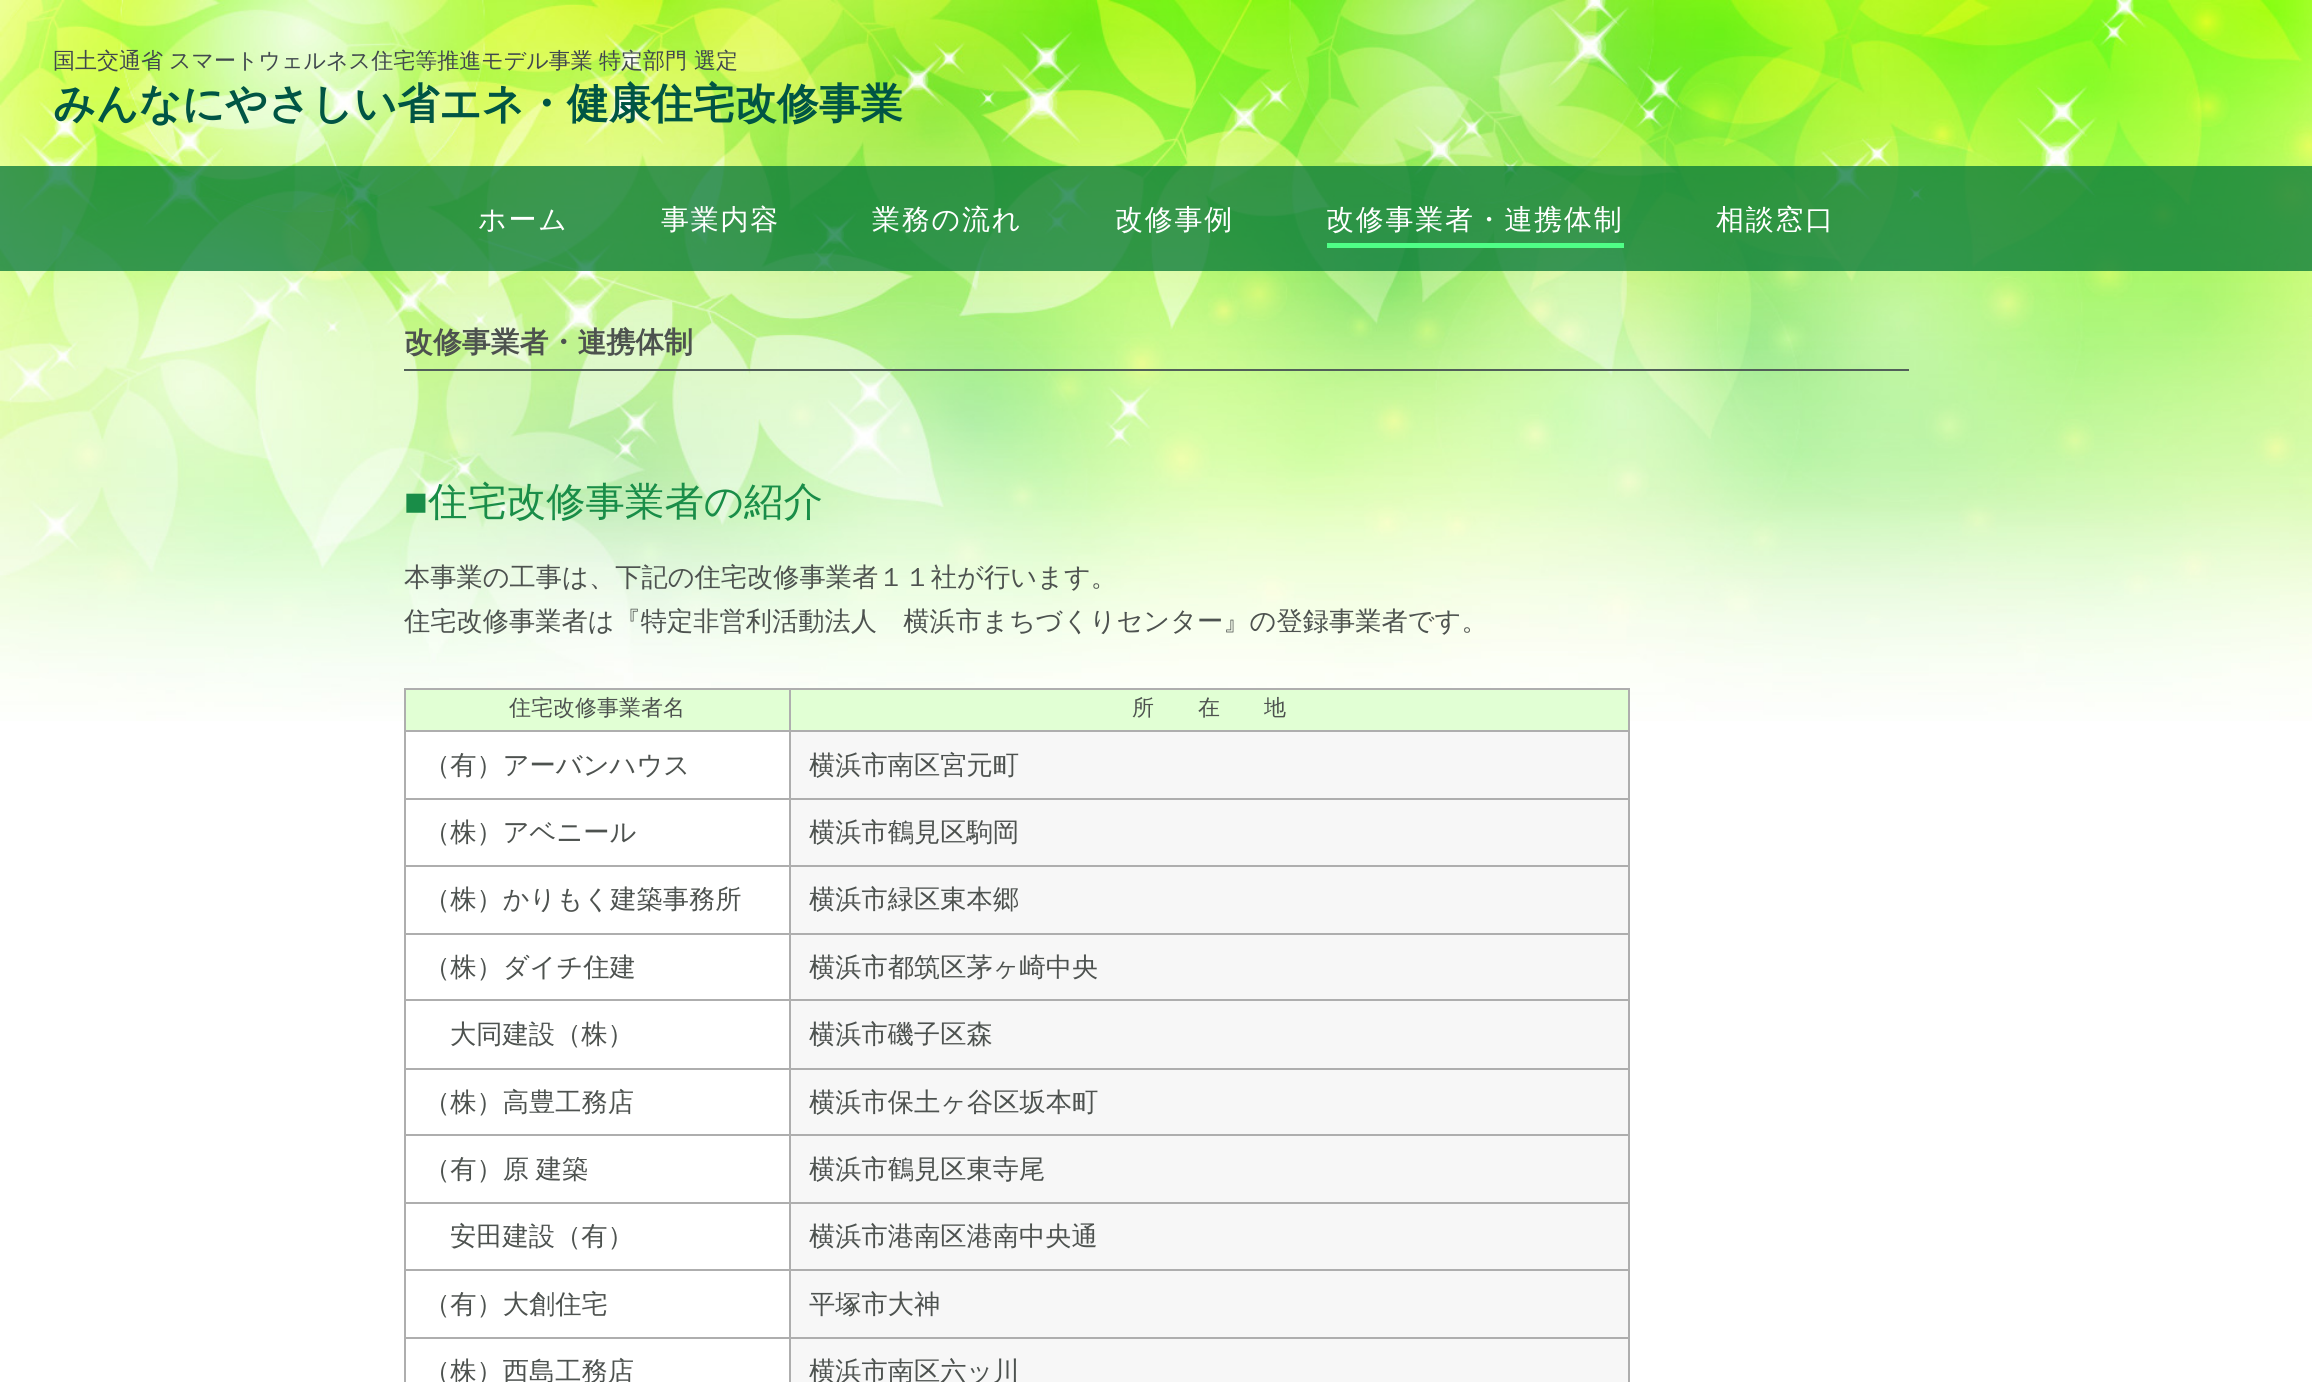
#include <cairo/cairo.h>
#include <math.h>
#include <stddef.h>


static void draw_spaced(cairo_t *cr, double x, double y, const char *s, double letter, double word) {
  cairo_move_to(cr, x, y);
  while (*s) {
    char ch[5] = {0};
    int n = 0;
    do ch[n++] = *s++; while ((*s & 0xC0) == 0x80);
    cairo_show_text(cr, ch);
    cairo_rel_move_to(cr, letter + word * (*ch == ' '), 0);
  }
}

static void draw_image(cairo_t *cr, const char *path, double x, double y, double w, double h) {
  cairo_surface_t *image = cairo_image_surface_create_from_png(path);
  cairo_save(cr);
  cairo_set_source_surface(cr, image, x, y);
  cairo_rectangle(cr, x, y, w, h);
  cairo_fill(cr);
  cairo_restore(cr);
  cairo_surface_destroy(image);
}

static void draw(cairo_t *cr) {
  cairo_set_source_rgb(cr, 1, 1, 1);
  cairo_paint(cr);
  draw_image(cr, "images/1.png", 0, 0, 2312, 721);
  cairo_set_source_rgba(cr, 0, 117 / 255.0, 55 / 255.0, 0.74);
  cairo_rectangle(cr, 0, 166, 2312, 105);
  cairo_fill(cr);
  cairo_set_source_rgb(cr, 79 / 255.0, 1, 134 / 255.0);
  cairo_rectangle(cr, 1327, 243, 297, 5);
  cairo_fill(cr);
  cairo_set_source_rgb(cr, 82 / 255.0, 96 / 255.0, 89 / 255.0);
  cairo_rectangle(cr, 404, 369, 1505, 2);
  cairo_fill(cr);
  cairo_set_source_rgb(cr, 174 / 255.0, 174 / 255.0, 174 / 255.0);
  cairo_rectangle(cr, 404, 688, 1225, 2);
  cairo_fill(cr);
  cairo_rectangle(cr, 1628, 688, 2, 694);
  cairo_fill(cr);
  cairo_rectangle(cr, 404, 688, 2, 694);
  cairo_fill(cr);
  cairo_set_source_rgb(cr, 225 / 255.0, 1, 212 / 255.0);
  cairo_rectangle(cr, 406, 690, 383, 40);
  cairo_fill(cr);
  cairo_rectangle(cr, 791, 690, 837, 40);
  cairo_fill(cr);
  cairo_set_source_rgb(cr, 174 / 255.0, 174 / 255.0, 174 / 255.0);
  cairo_rectangle(cr, 789, 730, 840, 2);
  cairo_fill(cr);
  cairo_rectangle(cr, 789, 798, 840, 2);
  cairo_fill(cr);
  cairo_rectangle(cr, 789, 865, 840, 2);
  cairo_fill(cr);
  cairo_rectangle(cr, 789, 933, 840, 2);
  cairo_fill(cr);
  cairo_rectangle(cr, 789, 999, 840, 2);
  cairo_fill(cr);
  cairo_rectangle(cr, 789, 1068, 840, 2);
  cairo_fill(cr);
  cairo_rectangle(cr, 789, 1134, 840, 2);
  cairo_fill(cr);
  cairo_rectangle(cr, 789, 1202, 840, 2);
  cairo_fill(cr);
  cairo_rectangle(cr, 789, 1269, 840, 2);
  cairo_fill(cr);
  cairo_rectangle(cr, 789, 1337, 840, 2);
  cairo_fill(cr);
  cairo_rectangle(cr, 789, 1337, 2, 45);
  cairo_fill(cr);
  cairo_rectangle(cr, 404, 1337, 387, 2);
  cairo_fill(cr);
  cairo_rectangle(cr, 789, 1269, 2, 70);
  cairo_fill(cr);
  cairo_rectangle(cr, 404, 1269, 387, 2);
  cairo_fill(cr);
  cairo_rectangle(cr, 789, 1202, 2, 69);
  cairo_fill(cr);
  cairo_rectangle(cr, 404, 1202, 387, 2);
  cairo_fill(cr);
  cairo_rectangle(cr, 789, 1134, 2, 70);
  cairo_fill(cr);
  cairo_rectangle(cr, 404, 1134, 387, 2);
  cairo_fill(cr);
  cairo_rectangle(cr, 789, 1068, 2, 68);
  cairo_fill(cr);
  cairo_rectangle(cr, 404, 1068, 387, 2);
  cairo_fill(cr);
  cairo_rectangle(cr, 789, 999, 2, 70);
  cairo_fill(cr);
  cairo_rectangle(cr, 404, 999, 387, 2);
  cairo_fill(cr);
  cairo_rectangle(cr, 789, 933, 2, 68);
  cairo_fill(cr);
  cairo_rectangle(cr, 404, 933, 387, 2);
  cairo_fill(cr);
  cairo_rectangle(cr, 789, 865, 2, 70);
  cairo_fill(cr);
  cairo_rectangle(cr, 404, 865, 387, 2);
  cairo_fill(cr);
  cairo_rectangle(cr, 789, 798, 2, 68);
  cairo_fill(cr);
  cairo_rectangle(cr, 404, 798, 387, 2);
  cairo_fill(cr);
  cairo_rectangle(cr, 789, 730, 2, 70);
  cairo_fill(cr);
  cairo_rectangle(cr, 404, 730, 387, 2);
  cairo_fill(cr);
  cairo_rectangle(cr, 789, 688, 2, 44);
  cairo_fill(cr);
  cairo_set_source_rgb(cr, 247 / 255.0, 247 / 255.0, 247 / 255.0);
  cairo_rectangle(cr, 791, 732, 837, 66);
  cairo_fill(cr);
  cairo_rectangle(cr, 791, 800, 837, 65);
  cairo_fill(cr);
  cairo_rectangle(cr, 791, 867, 837, 66);
  cairo_fill(cr);
  cairo_rectangle(cr, 791, 935, 837, 64);
  cairo_fill(cr);
  cairo_rectangle(cr, 791, 1001, 837, 67);
  cairo_fill(cr);
  cairo_rectangle(cr, 791, 1070, 837, 64);
  cairo_fill(cr);
  cairo_rectangle(cr, 791, 1136, 837, 66);
  cairo_fill(cr);
  cairo_rectangle(cr, 791, 1204, 837, 65);
  cairo_fill(cr);
  cairo_rectangle(cr, 791, 1271, 837, 66);
  cairo_fill(cr);
  cairo_rectangle(cr, 791, 1339, 837, 43);
  cairo_fill(cr);
  cairo_select_font_face(cr, "WenQuanYi Zen Hei Medium", CAIRO_FONT_SLANT_NORMAL, CAIRO_FONT_WEIGHT_NORMAL);
  cairo_set_font_size(cr, 22);
  cairo_set_source_rgb(cr, 64 / 255.0, 72 / 255.0, 77 / 255.0);
  cairo_move_to(cr, 53, 68);
  cairo_show_text(cr, "国土交通省");
  cairo_move_to(cr, 169, 68);
  cairo_show_text(cr, "スマートウェルネス住宅等推進モデル事業");
  cairo_move_to(cr, 599, 68);
  cairo_show_text(cr, "特定部門");
  cairo_move_to(cr, 694, 68);
  cairo_show_text(cr, "選定");
  cairo_select_font_face(cr, "WenQuanYi Zen Hei", CAIRO_FONT_SLANT_NORMAL, CAIRO_FONT_WEIGHT_BOLD);
  cairo_set_font_size(cr, 42);
  cairo_set_source_rgb(cr, 0, 85 / 255.0, 68 / 255.0);
  cairo_move_to(cr, 53, 118);
  cairo_show_text(cr, "みんなにやさしい省エネ・健康住宅改修事業");
  cairo_select_font_face(cr, "WenQuanYi Zen Hei Medium", CAIRO_FONT_SLANT_NORMAL, CAIRO_FONT_WEIGHT_NORMAL);
  cairo_set_font_size(cr, 28);
  cairo_set_source_rgb(cr, 1, 1, 1);
  draw_spaced(cr, 478, 229, "ホーム", 1.75, 0);
  draw_spaced(cr, 661, 229, "事業内容", 1.75, 0);
  draw_spaced(cr, 872, 229, "業務の流れ", 1.75, 0);
  draw_spaced(cr, 1115, 229, "改修事例", 1.75, 0);
  draw_spaced(cr, 1326, 229, "改修事業者・連携体制", 1.75, 0);
  draw_spaced(cr, 1716, 229, "相談窓口", 1.75, 0);
  cairo_select_font_face(cr, "WenQuanYi Zen Hei", CAIRO_FONT_SLANT_NORMAL, CAIRO_FONT_WEIGHT_BOLD);
  cairo_set_font_size(cr, 28.9);
  cairo_set_source_rgb(cr, 77 / 255.0, 82 / 255.0, 79 / 255.0);
  cairo_move_to(cr, 404, 352);
  cairo_show_text(cr, "改修事業者・連携体制");
  cairo_select_font_face(cr, "Liberation Sans", CAIRO_FONT_SLANT_NORMAL, CAIRO_FONT_WEIGHT_NORMAL);
  cairo_set_font_size(cr, 39.4);
  cairo_set_source_rgb(cr, 25 / 255.0, 141 / 255.0, 72 / 255.0);
  cairo_move_to(cr, 404, 515);
  cairo_show_text(cr, "■");
  cairo_select_font_face(cr, "WenQuanYi Zen Hei Medium", CAIRO_FONT_SLANT_NORMAL, CAIRO_FONT_WEIGHT_NORMAL);
  cairo_move_to(cr, 428, 515);
  cairo_show_text(cr, "住宅改修事業者の紹介");
  cairo_set_font_size(cr, 26.25);
  cairo_set_source_rgb(cr, 77 / 255.0, 82 / 255.0, 79 / 255.0);
  cairo_move_to(cr, 404, 586);
  cairo_show_text(cr, "本事業の工事は、下記の住宅改修事業者１１社が行います。");
  cairo_move_to(cr, 404, 630);
  cairo_show_text(cr, "住宅改修事業者は『特定非営利活動法人　横浜市まちづくりセンター』の登録事業者です。");
  cairo_set_font_size(cr, 22);
  cairo_move_to(cr, 509, 715);
  cairo_show_text(cr, "住宅改修事業者名");
  cairo_move_to(cr, 1132, 715);
  cairo_show_text(cr, "所　　在　　地");
  cairo_set_font_size(cr, 26.25);
  cairo_move_to(cr, 424, 774);
  cairo_show_text(cr, "（有）アーバンハウス");
  cairo_move_to(cr, 809, 774);
  cairo_show_text(cr, "横浜市南区宮元町");
  cairo_move_to(cr, 424, 841);
  cairo_show_text(cr, "（株）アベニール");
  cairo_move_to(cr, 809, 841);
  cairo_show_text(cr, "横浜市鶴見区駒岡");
  cairo_move_to(cr, 424, 908);
  cairo_show_text(cr, "（株）かりもく建築事務所");
  cairo_move_to(cr, 809, 908);
  cairo_show_text(cr, "横浜市緑区東本郷");
  cairo_move_to(cr, 424, 976);
  cairo_show_text(cr, "（株）ダイチ住建");
  cairo_move_to(cr, 809, 976);
  cairo_show_text(cr, "横浜市都筑区茅ヶ崎中央");
  cairo_move_to(cr, 450, 1043);
  cairo_show_text(cr, "大同建設（株）");
  cairo_move_to(cr, 809, 1043);
  cairo_show_text(cr, "横浜市磯子区森");
  cairo_move_to(cr, 424, 1111);
  cairo_show_text(cr, "（株）高豊工務店");
  cairo_move_to(cr, 809, 1111);
  cairo_show_text(cr, "横浜市保土ヶ谷区坂本町");
  draw_spaced(cr, 424, 1178, "（有）原 建築", 0, -1);
  cairo_move_to(cr, 809, 1178);
  cairo_show_text(cr, "横浜市鶴見区東寺尾");
  cairo_move_to(cr, 450, 1245);
  cairo_show_text(cr, "安田建設（有）");
  cairo_move_to(cr, 809, 1245);
  cairo_show_text(cr, "横浜市港南区港南中央通");
  cairo_move_to(cr, 424, 1313);
  cairo_show_text(cr, "（有）大創住宅");
  cairo_move_to(cr, 809, 1313);
  cairo_show_text(cr, "平塚市大神");
  cairo_move_to(cr, 424, 1380);
  cairo_show_text(cr, "（株）西島工務店");
  cairo_move_to(cr, 809, 1380);
  cairo_show_text(cr, "横浜市南区六ッ川");
}

int main(void) {
  cairo_surface_t *surface = cairo_image_surface_create(CAIRO_FORMAT_RGB24, 2312, 1382);
  cairo_t *cr = cairo_create(surface);
  cairo_font_options_t *options = cairo_font_options_create();
  cairo_font_options_set_hint_metrics(options, CAIRO_HINT_METRICS_OFF);
  cairo_font_options_set_hint_style(options, CAIRO_HINT_STYLE_NONE);
  cairo_set_font_options(cr, options);
  cairo_set_miter_limit(cr, 4);
  draw(cr);
  cairo_surface_write_to_png(surface, "out.png");
  cairo_font_options_destroy(options);
  cairo_destroy(cr);
  cairo_surface_destroy(surface);
  return 0;
}
